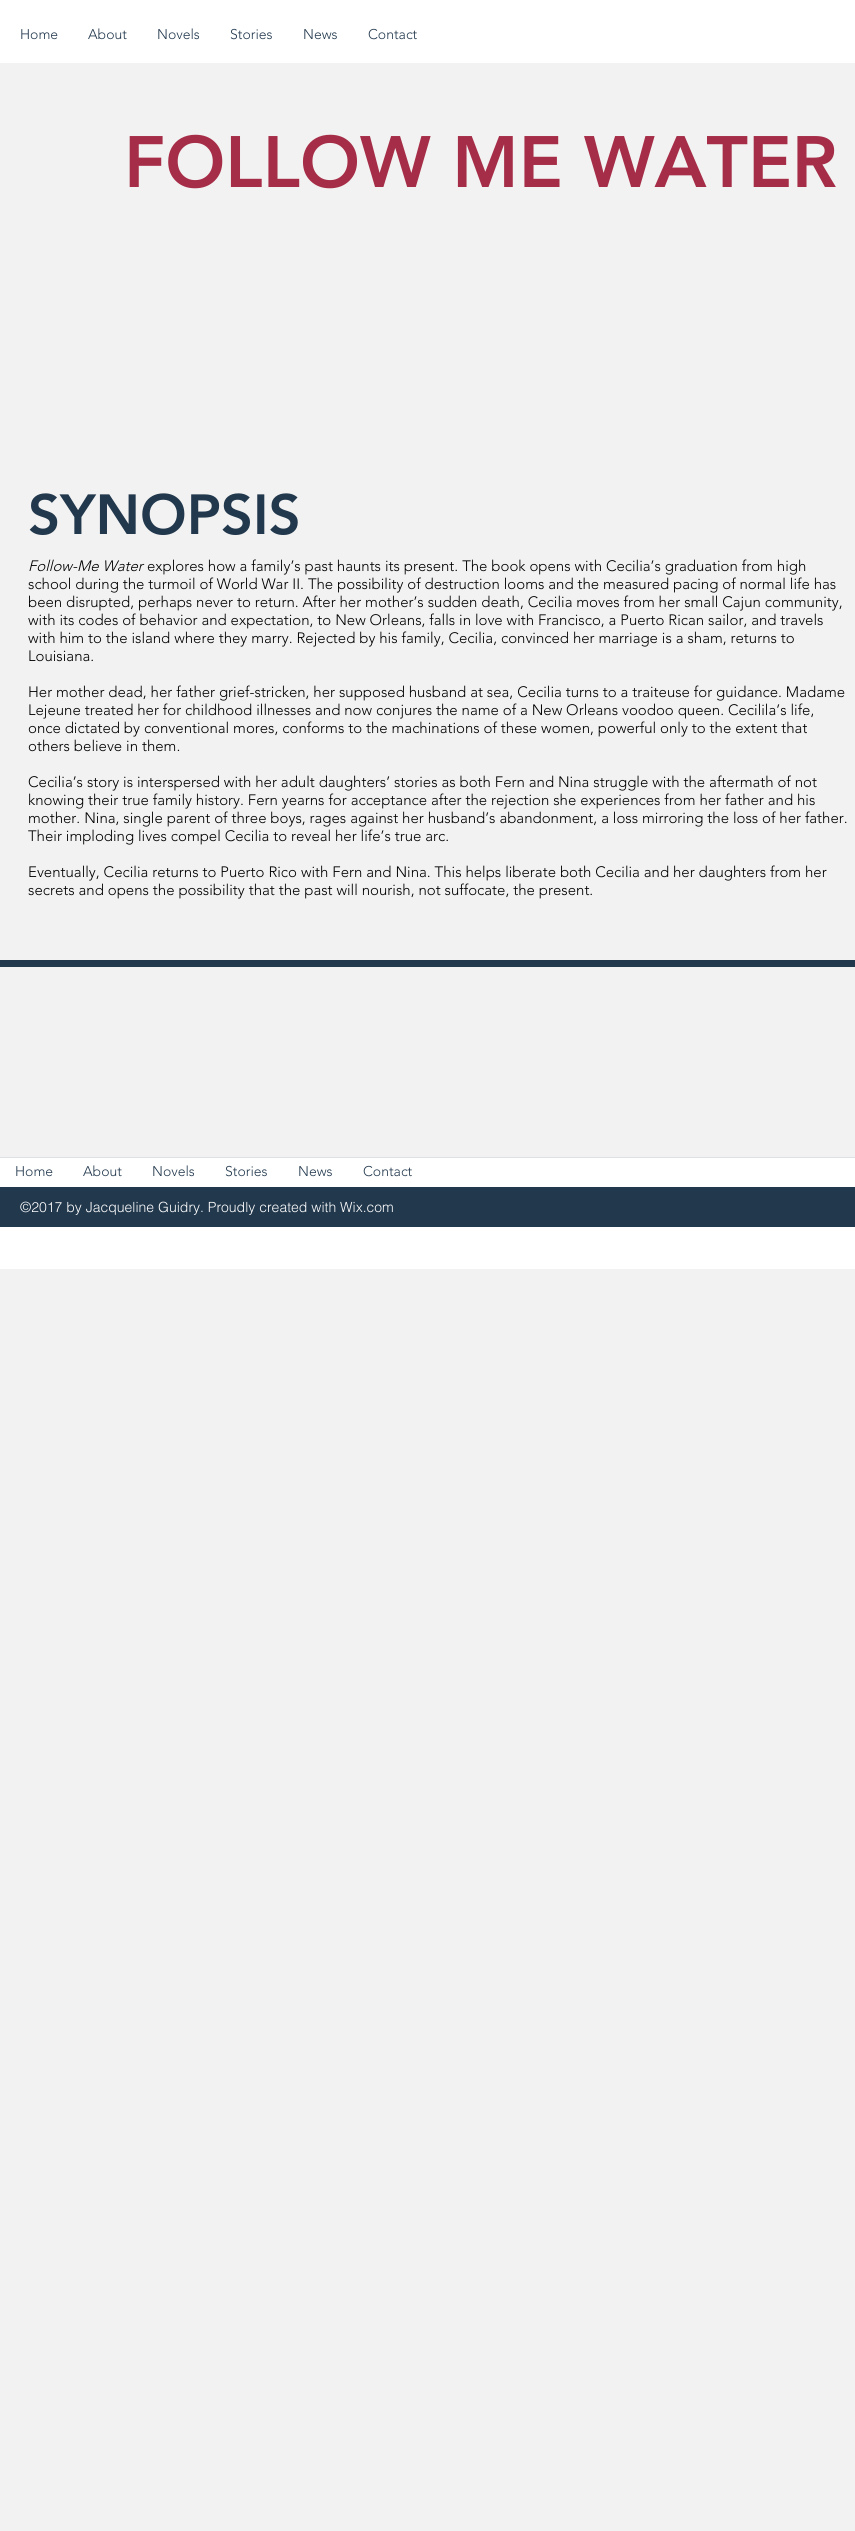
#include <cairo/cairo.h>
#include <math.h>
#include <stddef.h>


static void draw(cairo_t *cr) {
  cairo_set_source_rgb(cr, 242 / 255.0, 242 / 255.0, 242 / 255.0);
  cairo_paint(cr);
  cairo_set_source_rgb(cr, 1, 1, 1);
  cairo_rectangle(cr, 0, 0, 855, 63);
  cairo_fill(cr);
  cairo_set_source_rgb(cr, 34 / 255.0, 56 / 255.0, 77 / 255.0);
  cairo_rectangle(cr, 0, 960, 855, 7);
  cairo_fill(cr);
  cairo_set_source_rgb(cr, 1, 1, 1);
  cairo_rectangle(cr, 0, 1158, 855, 111);
  cairo_fill(cr);
  cairo_set_source_rgb(cr, 222 / 255.0, 225 / 255.0, 228 / 255.0);
  cairo_rectangle(cr, 0, 1157, 855, 1);
  cairo_fill(cr);
  cairo_set_source_rgb(cr, 34 / 255.0, 56 / 255.0, 77 / 255.0);
  cairo_rectangle(cr, 0, 1187, 855, 40);
  cairo_fill(cr);
  cairo_select_font_face(cr, "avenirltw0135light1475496 Light", CAIRO_FONT_SLANT_NORMAL, CAIRO_FONT_WEIGHT_NORMAL);
  cairo_set_font_size(cr, 14);
  cairo_move_to(cr, 20, 39);
  cairo_show_text(cr, "Home");
  cairo_move_to(cr, 88, 39);
  cairo_show_text(cr, "About");
  cairo_move_to(cr, 157, 39);
  cairo_show_text(cr, "Novels");
  cairo_move_to(cr, 230, 39);
  cairo_show_text(cr, "Stories");
  cairo_move_to(cr, 303, 39);
  cairo_show_text(cr, "News");
  cairo_move_to(cr, 368, 39);
  cairo_show_text(cr, "Contact");
  cairo_select_font_face(cr, "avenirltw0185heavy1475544 Black", CAIRO_FONT_SLANT_NORMAL, CAIRO_FONT_WEIGHT_NORMAL);
  cairo_set_font_size(cr, 72);
  cairo_set_source_rgb(cr, 166 / 255.0, 45 / 255.0, 71 / 255.0);
  cairo_move_to(cr, 124, 187);
  cairo_show_text(cr, "FOLLOW ME WATER");
  cairo_set_font_size(cr, 56);
  cairo_set_source_rgb(cr, 34 / 255.0, 56 / 255.0, 77 / 255.0);
  cairo_move_to(cr, 28, 534);
  cairo_show_text(cr, "SYNOPSIS");
  cairo_select_font_face(cr, "avenirltw0135light1475496 Light", CAIRO_FONT_SLANT_ITALIC, CAIRO_FONT_WEIGHT_NORMAL);
  cairo_set_font_size(cr, 15);
  cairo_set_source_rgb(cr, 0, 0, 0);
  cairo_move_to(cr, 28, 571);
  cairo_show_text(cr, "Follow-Me Water");
  cairo_select_font_face(cr, "avenirltw0135light1475496 Light", CAIRO_FONT_SLANT_NORMAL, CAIRO_FONT_WEIGHT_NORMAL);
  cairo_move_to(cr, 147, 571);
  cairo_show_text(cr, "explores how a family’s past haunts its present. The book opens with Cecilia’s graduation from high");
  cairo_move_to(cr, 28, 589);
  cairo_show_text(cr, "school during the turmoil of World War II. The possibility of destruction looms and the measured pacing of normal life has");
  cairo_move_to(cr, 28, 607);
  cairo_show_text(cr, "been disrupted, perhaps never to return. After her mother’s sudden death, Cecilia moves from her small Cajun community,");
  cairo_move_to(cr, 28, 625);
  cairo_show_text(cr, "with its codes of behavior and expectation, to New Orleans, falls in love with Francisco, a Puerto Rican sailor, and travels");
  cairo_move_to(cr, 28, 643);
  cairo_show_text(cr, "with him to the island where they marry. Rejected by his family, Cecilia, convinced her marriage is a sham, returns to");
  cairo_move_to(cr, 28, 661);
  cairo_show_text(cr, "Louisiana.");
  cairo_move_to(cr, 28, 697);
  cairo_show_text(cr, "Her mother dead, her father grief-stricken, her supposed husband at sea, Cecilia turns to a traiteuse for guidance. Madame");
  cairo_move_to(cr, 28, 715);
  cairo_show_text(cr, "Lejeune treated her for childhood illnesses and now conjures the name of a New Orleans voodoo queen. Cecilila’s life,");
  cairo_move_to(cr, 28, 733);
  cairo_show_text(cr, "once dictated by conventional mores, conforms to the machinations of these women, powerful only to the extent that");
  cairo_move_to(cr, 28, 751);
  cairo_show_text(cr, "others believe in them.");
  cairo_move_to(cr, 28, 787);
  cairo_show_text(cr, "Cecilia’s story is interspersed with her adult daughters’ stories as both Fern and Nina struggle with the aftermath of not");
  cairo_move_to(cr, 28, 805);
  cairo_show_text(cr, "knowing their true family history. Fern yearns for acceptance after the rejection she experiences from her father and his");
  cairo_move_to(cr, 28, 823);
  cairo_show_text(cr, "mother. Nina, single parent of three boys, rages against her husband’s abandonment, a loss mirroring the loss of her father.");
  cairo_move_to(cr, 28, 841);
  cairo_show_text(cr, "Their imploding lives compel Cecilia to reveal her life’s true arc.");
  cairo_move_to(cr, 28, 877);
  cairo_show_text(cr, "Eventually, Cecilia returns to Puerto Rico with Fern and Nina. This helps liberate both Cecilia and her daughters from her");
  cairo_move_to(cr, 28, 895);
  cairo_show_text(cr, "secrets and opens the possibility that the past will nourish, not suffocate, the present.");
  cairo_set_font_size(cr, 14);
  cairo_set_source_rgb(cr, 34 / 255.0, 56 / 255.0, 77 / 255.0);
  cairo_move_to(cr, 15, 1176);
  cairo_show_text(cr, "Home");
  cairo_move_to(cr, 83, 1176);
  cairo_show_text(cr, "About");
  cairo_move_to(cr, 152, 1176);
  cairo_show_text(cr, "Novels");
  cairo_move_to(cr, 225, 1176);
  cairo_show_text(cr, "Stories");
  cairo_move_to(cr, 298, 1176);
  cairo_show_text(cr, "News");
  cairo_move_to(cr, 363, 1176);
  cairo_show_text(cr, "Contact");
  cairo_select_font_face(cr, "helvetica Light", CAIRO_FONT_SLANT_NORMAL, CAIRO_FONT_WEIGHT_NORMAL);
  cairo_set_source_rgb(cr, 1, 1, 1);
  cairo_move_to(cr, 20, 1212);
  cairo_show_text(cr, "©2017 by Jacqueline Guidry. Proudly created with Wix.com");
}

int main(void) {
  cairo_surface_t *surface = cairo_image_surface_create(CAIRO_FORMAT_RGB24, 855, 2531);
  cairo_t *cr = cairo_create(surface);
  cairo_font_options_t *options = cairo_font_options_create();
  cairo_font_options_set_hint_metrics(options, CAIRO_HINT_METRICS_OFF);
  cairo_font_options_set_hint_style(options, CAIRO_HINT_STYLE_NONE);
  cairo_set_font_options(cr, options);
  cairo_set_miter_limit(cr, 4);
  draw(cr);
  cairo_surface_write_to_png(surface, "out.png");
  cairo_font_options_destroy(options);
  cairo_destroy(cr);
  cairo_surface_destroy(surface);
  return 0;
}
